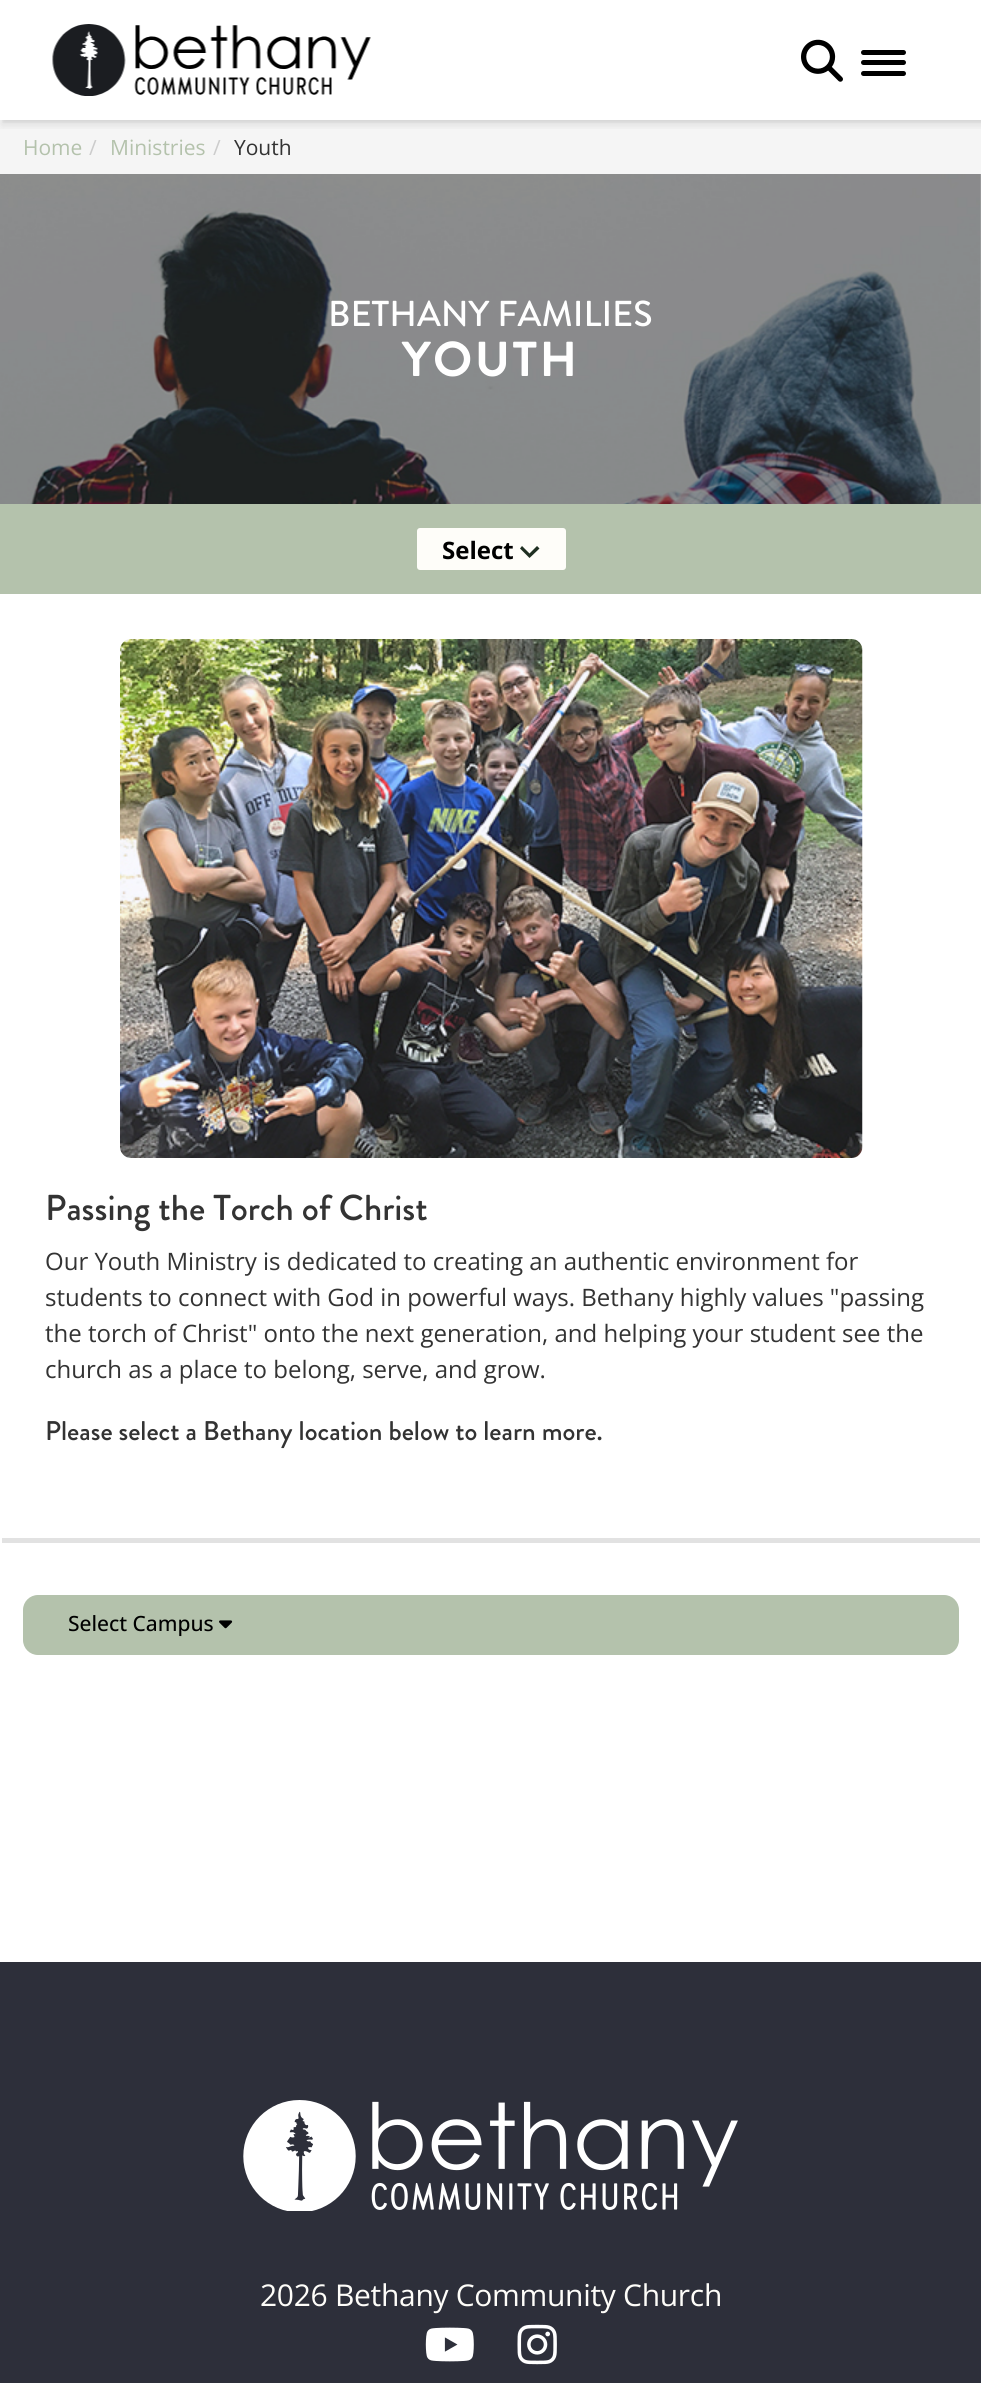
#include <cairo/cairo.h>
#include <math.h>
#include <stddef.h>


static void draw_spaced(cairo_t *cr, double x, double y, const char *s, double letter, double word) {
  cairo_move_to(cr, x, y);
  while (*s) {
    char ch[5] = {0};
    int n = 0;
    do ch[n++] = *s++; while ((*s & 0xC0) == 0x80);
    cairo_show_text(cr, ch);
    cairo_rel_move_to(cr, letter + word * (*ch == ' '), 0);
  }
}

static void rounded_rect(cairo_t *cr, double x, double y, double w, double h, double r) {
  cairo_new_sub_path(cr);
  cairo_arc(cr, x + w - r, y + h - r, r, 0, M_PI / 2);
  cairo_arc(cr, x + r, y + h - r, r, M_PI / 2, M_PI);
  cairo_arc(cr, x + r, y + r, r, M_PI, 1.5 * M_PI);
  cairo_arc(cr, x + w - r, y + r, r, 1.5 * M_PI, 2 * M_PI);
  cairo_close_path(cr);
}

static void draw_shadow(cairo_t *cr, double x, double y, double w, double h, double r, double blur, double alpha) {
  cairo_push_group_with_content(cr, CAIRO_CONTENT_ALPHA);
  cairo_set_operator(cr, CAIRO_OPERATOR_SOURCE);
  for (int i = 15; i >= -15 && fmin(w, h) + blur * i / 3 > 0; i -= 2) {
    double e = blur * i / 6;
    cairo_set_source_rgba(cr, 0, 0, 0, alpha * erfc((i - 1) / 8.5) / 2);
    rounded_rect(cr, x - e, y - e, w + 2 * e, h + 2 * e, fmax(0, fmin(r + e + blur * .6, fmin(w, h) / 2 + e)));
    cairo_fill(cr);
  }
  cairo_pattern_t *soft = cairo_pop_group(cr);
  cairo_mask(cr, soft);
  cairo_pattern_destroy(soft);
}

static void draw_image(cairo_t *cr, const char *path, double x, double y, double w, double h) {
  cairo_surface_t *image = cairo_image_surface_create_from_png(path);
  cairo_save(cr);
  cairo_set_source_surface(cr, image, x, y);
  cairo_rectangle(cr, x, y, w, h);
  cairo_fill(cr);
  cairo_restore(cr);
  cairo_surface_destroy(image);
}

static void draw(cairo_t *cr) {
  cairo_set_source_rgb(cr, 1, 1, 1);
  cairo_paint(cr);
  cairo_set_source_rgb(cr, 245 / 255.0, 245 / 255.0, 245 / 255.0);
  cairo_rectangle(cr, 0, 120, 981, 54);
  cairo_fill(cr);
  cairo_save(cr);
  cairo_rectangle(cr, 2, 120, 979, 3);
  cairo_clip(cr);
  cairo_set_source_rgb(cr, 0, 0, 0);
  draw_shadow(cr, 2, 5, 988, 117, 0, 3, 0.06);
  cairo_restore(cr);
  cairo_save(cr);
  cairo_rectangle(cr, 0, 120, 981, 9);
  cairo_clip(cr);
  cairo_set_source_rgb(cr, 0, 0, 0);
  draw_shadow(cr, 2, 8, 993, 117, 0, 4.5, 0.1);
  cairo_restore(cr);
  draw_image(cr, "images/1.png", 52, 24, 319, 72);
  draw_image(cr, "images/2.png", 801, 39, 42, 43);
  cairo_set_source_rgb(cr, 0, 0, 0);
  rounded_rect(cr, 861, 50, 45, 5, 2.5);
  cairo_fill(cr);
  rounded_rect(cr, 861, 60, 45, 5, 2.5);
  cairo_fill(cr);
  rounded_rect(cr, 861, 71, 45, 5, 2.5);
  cairo_fill(cr);
  draw_image(cr, "images/3.png", 0, 174, 981, 330);
  cairo_set_source_rgb(cr, 180 / 255.0, 194 / 255.0, 172 / 255.0);
  cairo_rectangle(cr, 0, 504, 981, 90);
  cairo_fill(cr);
  cairo_set_source_rgb(cr, 254 / 255.0, 253 / 255.0, 249 / 255.0);
  rounded_rect(cr, 417, 528, 149, 42, 3);
  cairo_fill(cr);
  cairo_set_source_rgb(cr, 31 / 255.0, 47 / 255.0, 34 / 255.0);
  cairo_new_path(cr);
  cairo_move_to(cr, 522, 546);
  cairo_line_to(cr, 529.5, 553.5);
  cairo_line_to(cr, 537, 546);
  cairo_line_to(cr, 539.5, 548.5);
  cairo_line_to(cr, 529.5, 558);
  cairo_line_to(cr, 520, 548.5);
  cairo_close_path(cr);
  cairo_fill(cr);
  draw_image(cr, "images/4.png", 120, 639, 743, 519);
  cairo_set_source_rgb(cr, 226 / 255.0, 226 / 255.0, 226 / 255.0);
  cairo_rectangle(cr, 2, 1538, 978, 5);
  cairo_fill(cr);
  cairo_set_source_rgb(cr, 180 / 255.0, 194 / 255.0, 172 / 255.0);
  rounded_rect(cr, 23, 1595, 936, 60, 15);
  cairo_fill(cr);
  draw_image(cr, "images/5.png", 219, 1620, 14, 9);
  cairo_set_source_rgb(cr, 45 / 255.0, 47 / 255.0, 58 / 255.0);
  cairo_rectangle(cr, 0, 1962, 981, 421);
  cairo_fill(cr);
  draw_image(cr, "images/6.png", 243, 2100, 495, 111);
  draw_image(cr, "images/7.png", 425, 2327, 49, 35);
  draw_image(cr, "images/8.png", 517, 2324, 40, 41);
  cairo_select_font_face(cr, "Open Sans", CAIRO_FONT_SLANT_NORMAL, CAIRO_FONT_WEIGHT_NORMAL);
  cairo_set_font_size(cr, 21);
  cairo_set_source_rgb(cr, 180 / 255.0, 194 / 255.0, 172 / 255.0);
  cairo_move_to(cr, 23, 155);
  cairo_show_text(cr, "Home");
  cairo_set_source_rgb(cr, 204 / 255.0, 204 / 255.0, 204 / 255.0);
  cairo_move_to(cr, 89, 155);
  cairo_show_text(cr, "/");
  cairo_set_source_rgb(cr, 180 / 255.0, 194 / 255.0, 172 / 255.0);
  cairo_move_to(cr, 110, 155);
  cairo_show_text(cr, "Ministries");
  cairo_set_source_rgb(cr, 204 / 255.0, 204 / 255.0, 204 / 255.0);
  cairo_move_to(cr, 213, 155);
  cairo_show_text(cr, "/");
  cairo_set_source_rgb(cr, 51 / 255.0, 51 / 255.0, 51 / 255.0);
  cairo_move_to(cr, 234, 155);
  cairo_show_text(cr, "Youth");
  cairo_select_font_face(cr, "Brandon Grotesque Medium", CAIRO_FONT_SLANT_NORMAL, CAIRO_FONT_WEIGHT_NORMAL);
  cairo_set_font_size(cr, 36);
  cairo_set_source_rgb(cr, 1, 1, 1);
  cairo_move_to(cr, 328, 326);
  cairo_show_text(cr, "BETHANY FAMILIES");
  cairo_select_font_face(cr, "Brandon Grotesque", CAIRO_FONT_SLANT_NORMAL, CAIRO_FONT_WEIGHT_BOLD);
  cairo_set_font_size(cr, 49);
  draw_spaced(cr, 402, 376, "YOUTH", 2.5, 0);
  cairo_select_font_face(cr, "Open Sans", CAIRO_FONT_SLANT_NORMAL, CAIRO_FONT_WEIGHT_BOLD);
  cairo_set_font_size(cr, 24);
  cairo_set_source_rgb(cr, 0, 0, 0);
  cairo_move_to(cr, 442, 559);
  cairo_show_text(cr, "Select");
  cairo_select_font_face(cr, "Brandon Grotesque Medium", CAIRO_FONT_SLANT_NORMAL, CAIRO_FONT_WEIGHT_NORMAL);
  cairo_set_font_size(cr, 36);
  cairo_set_source_rgb(cr, 51 / 255.0, 51 / 255.0, 51 / 255.0);
  cairo_move_to(cr, 45, 1220);
  cairo_show_text(cr, "Passing the Torch of Christ");
  cairo_select_font_face(cr, "Open Sans", CAIRO_FONT_SLANT_NORMAL, CAIRO_FONT_WEIGHT_NORMAL);
  cairo_set_font_size(cr, 24);
  cairo_move_to(cr, 45, 1270);
  cairo_show_text(cr, "Our Youth Ministry is dedicated to creating an authentic environment for");
  cairo_move_to(cr, 45, 1306);
  cairo_show_text(cr, "students to connect with God in powerful ways. Bethany highly values \"passing");
  cairo_move_to(cr, 45, 1342);
  cairo_show_text(cr, "the torch of Christ\" onto the next generation, and helping your student see the");
  cairo_move_to(cr, 45, 1378);
  cairo_show_text(cr, "church as a place to belong, serve, and grow.");
  cairo_select_font_face(cr, "Brandon Grotesque Medium", CAIRO_FONT_SLANT_NORMAL, CAIRO_FONT_WEIGHT_NORMAL);
  cairo_set_font_size(cr, 27);
  cairo_move_to(cr, 45, 1440);
  cairo_show_text(cr, "Please select a Bethany location below to learn more.");
  cairo_select_font_face(cr, "Open Sans Medium", CAIRO_FONT_SLANT_NORMAL, CAIRO_FONT_WEIGHT_NORMAL);
  cairo_set_font_size(cr, 21);
  cairo_set_source_rgb(cr, 0, 0, 0);
  cairo_move_to(cr, 68, 1631);
  cairo_show_text(cr, "Select Campus");
  cairo_select_font_face(cr, "Open Sans", CAIRO_FONT_SLANT_NORMAL, CAIRO_FONT_WEIGHT_NORMAL);
  cairo_set_font_size(cr, 30);
  cairo_set_source_rgb(cr, 254 / 255.0, 253 / 255.0, 249 / 255.0);
  draw_spaced(cr, 260, 2306, "2026 Bethany Community Church", -0.3, 0);
}

int main(void) {
  cairo_surface_t *surface = cairo_image_surface_create(CAIRO_FORMAT_RGB24, 981, 2383);
  cairo_t *cr = cairo_create(surface);
  cairo_font_options_t *options = cairo_font_options_create();
  cairo_font_options_set_hint_metrics(options, CAIRO_HINT_METRICS_OFF);
  cairo_font_options_set_hint_style(options, CAIRO_HINT_STYLE_NONE);
  cairo_set_font_options(cr, options);
  cairo_set_miter_limit(cr, 4);
  draw(cr);
  cairo_surface_write_to_png(surface, "out.png");
  cairo_font_options_destroy(options);
  cairo_destroy(cr);
  cairo_surface_destroy(surface);
  return 0;
}
